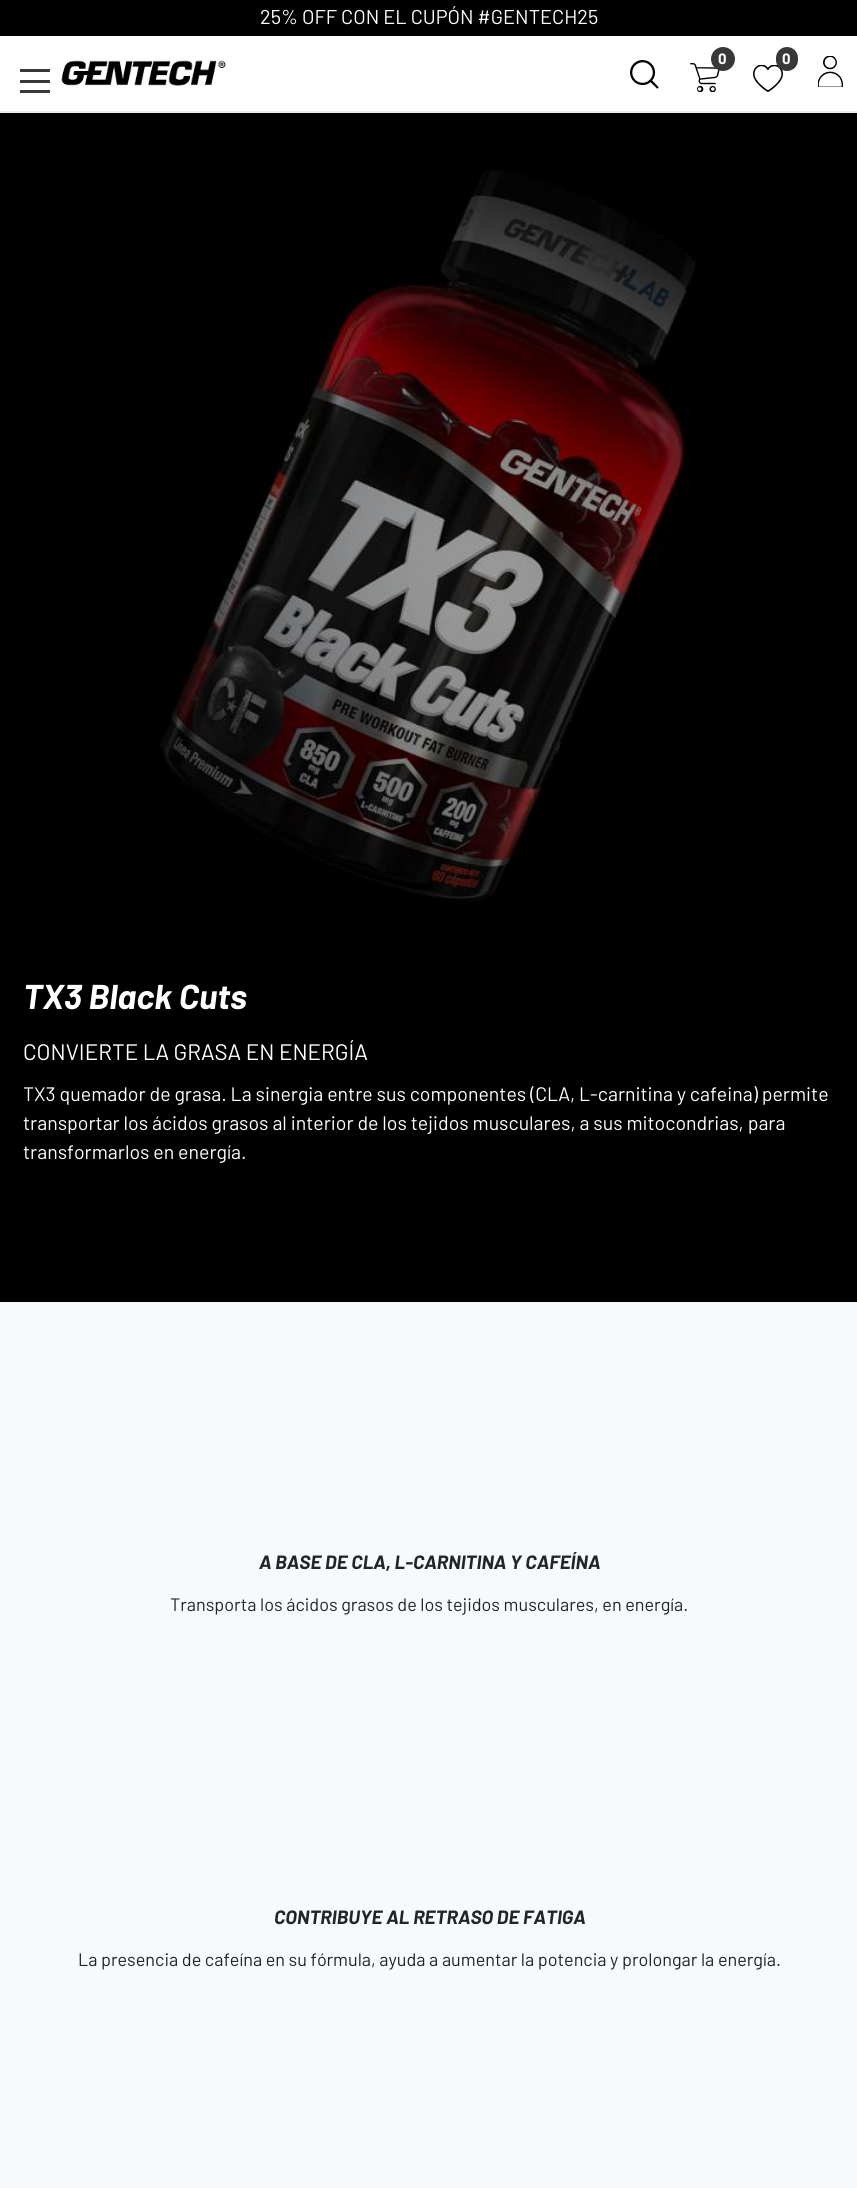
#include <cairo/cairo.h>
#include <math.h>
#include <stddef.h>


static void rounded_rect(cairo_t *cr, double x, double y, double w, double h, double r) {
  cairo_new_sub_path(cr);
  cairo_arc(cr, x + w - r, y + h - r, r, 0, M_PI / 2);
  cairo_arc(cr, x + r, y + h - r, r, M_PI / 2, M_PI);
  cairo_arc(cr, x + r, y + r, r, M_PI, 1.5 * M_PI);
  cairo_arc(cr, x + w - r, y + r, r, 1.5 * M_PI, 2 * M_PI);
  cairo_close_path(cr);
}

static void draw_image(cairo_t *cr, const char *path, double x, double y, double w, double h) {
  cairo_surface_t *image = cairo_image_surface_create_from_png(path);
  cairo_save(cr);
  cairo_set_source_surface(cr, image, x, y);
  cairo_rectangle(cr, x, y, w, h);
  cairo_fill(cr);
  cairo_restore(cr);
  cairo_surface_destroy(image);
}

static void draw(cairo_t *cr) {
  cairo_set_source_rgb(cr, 0, 0, 0);
  cairo_paint(cr);
  cairo_set_source_rgb(cr, 1, 1, 1);
  cairo_rectangle(cr, 0, 36, 857, 75);
  cairo_fill(cr);
  cairo_set_source_rgb(cr, 56 / 255.0, 56 / 255.0, 59 / 255.0);
  cairo_rectangle(cr, 20, 69, 30, 3);
  cairo_fill(cr);
  cairo_rectangle(cr, 20, 80, 30, 3);
  cairo_fill(cr);
  cairo_rectangle(cr, 20, 90, 30, 3);
  cairo_fill(cr);
  draw_image(cr, "images/1.png", 61, 60, 165, 26);
  draw_image(cr, "images/2.png", 630, 60, 29, 29);
  draw_image(cr, "images/3.png", 690, 63, 30, 29);
  cairo_arc(cr, 723, 59, 12, 0, 2 * M_PI);
  cairo_fill(cr);
  draw_image(cr, "images/4.png", 753, 65, 30, 27);
  rounded_rect(cr, 776, 47, 22, 24, 11);
  cairo_fill(cr);
  draw_image(cr, "images/5.png", 818, 56, 25, 31);
  cairo_set_source_rgb(cr, 237 / 255.0, 237 / 255.0, 237 / 255.0);
  cairo_rectangle(cr, 0, 111, 857, 2);
  cairo_fill(cr);
  draw_image(cr, "images/6.png", 160, 170, 536, 731);
  cairo_set_source_rgb(cr, 248 / 255.0, 249 / 255.0, 250 / 255.0);
  cairo_rectangle(cr, 0, 1302, 857, 886);
  cairo_fill(cr);
  cairo_select_font_face(cr, "Barlow", CAIRO_FONT_SLANT_NORMAL, CAIRO_FONT_WEIGHT_NORMAL);
  cairo_set_font_size(cr, 20);
  cairo_set_source_rgb(cr, 1, 1, 1);
  cairo_move_to(cr, 260, 24);
  cairo_show_text(cr, "25% OFF CON EL CUPÓN #GENTECH25");
  cairo_select_font_face(cr, "Barlow", CAIRO_FONT_SLANT_NORMAL, CAIRO_FONT_WEIGHT_BOLD);
  cairo_set_font_size(cr, 15);
  cairo_move_to(cr, 718, 64);
  cairo_show_text(cr, "0");
  cairo_move_to(cr, 782, 64);
  cairo_show_text(cr, "0");
  cairo_select_font_face(cr, "Barlow", CAIRO_FONT_SLANT_ITALIC, CAIRO_FONT_WEIGHT_BOLD);
  cairo_set_font_size(cr, 34.5);
  cairo_move_to(cr, 23, 1009);
  cairo_show_text(cr, "TX3 Black Cuts");
  cairo_select_font_face(cr, "Barlow", CAIRO_FONT_SLANT_NORMAL, CAIRO_FONT_WEIGHT_NORMAL);
  cairo_set_font_size(cr, 22.4);
  cairo_move_to(cr, 23, 1060);
  cairo_show_text(cr, "CONVIERTE LA GRASA EN ENERGÍA");
  cairo_set_font_size(cr, 19.5);
  cairo_move_to(cr, 23, 1101);
  cairo_show_text(cr, "TX3 quemador de grasa. La sinergia entre sus componentes (CLA, L-carnitina y cafeina) permite");
  cairo_move_to(cr, 23, 1130);
  cairo_show_text(cr, "transportar los ácidos grasos al interior de los tejidos musculares, a sus mitocondrias, para");
  cairo_move_to(cr, 23, 1159);
  cairo_show_text(cr, "transformarlos en energía.");
  cairo_select_font_face(cr, "Barlow", CAIRO_FONT_SLANT_ITALIC, CAIRO_FONT_WEIGHT_BOLD);
  cairo_set_font_size(cr, 19.25);
  cairo_set_source_rgb(cr, 33 / 255.0, 37 / 255.0, 41 / 255.0);
  cairo_move_to(cr, 259, 1569);
  cairo_show_text(cr, "A BASE DE CLA, L-CARNITINA Y CAFEÍNA");
  cairo_select_font_face(cr, "Barlow", CAIRO_FONT_SLANT_NORMAL, CAIRO_FONT_WEIGHT_NORMAL);
  cairo_set_font_size(cr, 18);
  cairo_move_to(cr, 170, 1611);
  cairo_show_text(cr, "Transporta los ácidos grasos de los tejidos musculares, en energía.");
  cairo_select_font_face(cr, "Barlow", CAIRO_FONT_SLANT_ITALIC, CAIRO_FONT_WEIGHT_BOLD);
  cairo_set_font_size(cr, 19.25);
  cairo_move_to(cr, 274, 1924);
  cairo_show_text(cr, "CONTRIBUYE AL RETRASO DE FATIGA");
  cairo_select_font_face(cr, "Barlow", CAIRO_FONT_SLANT_NORMAL, CAIRO_FONT_WEIGHT_NORMAL);
  cairo_set_font_size(cr, 18);
  cairo_move_to(cr, 78, 1966);
  cairo_show_text(cr, "La presencia de cafeína en su fórmula, ayuda a aumentar la potencia y prolongar la energía.");
}

int main(void) {
  cairo_surface_t *surface = cairo_image_surface_create(CAIRO_FORMAT_RGB24, 857, 2188);
  cairo_t *cr = cairo_create(surface);
  cairo_font_options_t *options = cairo_font_options_create();
  cairo_font_options_set_hint_metrics(options, CAIRO_HINT_METRICS_OFF);
  cairo_font_options_set_hint_style(options, CAIRO_HINT_STYLE_NONE);
  cairo_set_font_options(cr, options);
  cairo_set_miter_limit(cr, 4);
  draw(cr);
  cairo_surface_write_to_png(surface, "out.png");
  cairo_font_options_destroy(options);
  cairo_destroy(cr);
  cairo_surface_destroy(surface);
  return 0;
}
